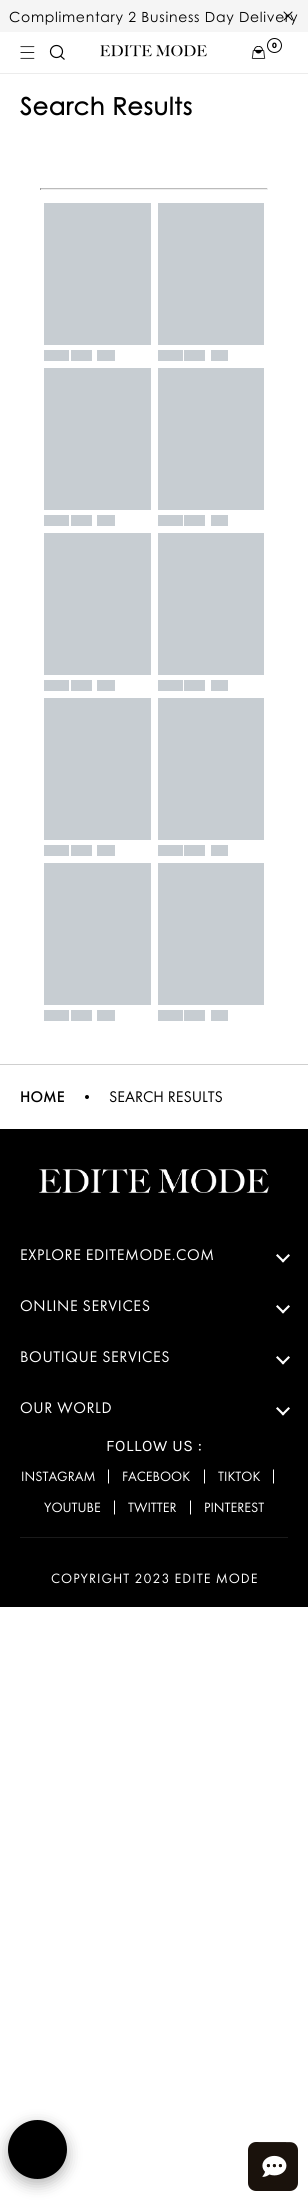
#include <cairo/cairo.h>
#include <math.h>
#include <stddef.h>


static void draw_spaced(cairo_t *cr, double x, double y, const char *s, double letter, double word) {
  cairo_move_to(cr, x, y);
  while (*s) {
    char ch[5] = {0};
    int n = 0;
    do ch[n++] = *s++; while ((*s & 0xC0) == 0x80);
    cairo_show_text(cr, ch);
    cairo_rel_move_to(cr, letter + word * (*ch == ' '), 0);
  }
}

static void rounded_rect(cairo_t *cr, double x, double y, double w, double h, double r) {
  cairo_new_sub_path(cr);
  cairo_arc(cr, x + w - r, y + h - r, r, 0, M_PI / 2);
  cairo_arc(cr, x + r, y + h - r, r, M_PI / 2, M_PI);
  cairo_arc(cr, x + r, y + r, r, M_PI, 1.5 * M_PI);
  cairo_arc(cr, x + w - r, y + r, r, 1.5 * M_PI, 2 * M_PI);
  cairo_close_path(cr);
}

static void draw_shadow(cairo_t *cr, double x, double y, double w, double h, double r, double blur, double alpha) {
  cairo_push_group_with_content(cr, CAIRO_CONTENT_ALPHA);
  cairo_set_operator(cr, CAIRO_OPERATOR_SOURCE);
  for (int i = 15; i >= -15 && fmin(w, h) + blur * i / 3 > 0; i -= 2) {
    double e = blur * i / 6;
    cairo_set_source_rgba(cr, 0, 0, 0, alpha * erfc((i - 1) / 8.5) / 2);
    rounded_rect(cr, x - e, y - e, w + 2 * e, h + 2 * e, fmax(0, fmin(r + e + blur * .6, fmin(w, h) / 2 + e)));
    cairo_fill(cr);
  }
  cairo_pattern_t *soft = cairo_pop_group(cr);
  cairo_mask(cr, soft);
  cairo_pattern_destroy(soft);
}

static void draw_image(cairo_t *cr, const char *path, double x, double y, double w, double h) {
  cairo_surface_t *image = cairo_image_surface_create_from_png(path);
  cairo_save(cr);
  cairo_set_source_surface(cr, image, x, y);
  cairo_rectangle(cr, x, y, w, h);
  cairo_fill(cr);
  cairo_restore(cr);
  cairo_surface_destroy(image);
}

static void draw(cairo_t *cr) {
  cairo_set_source_rgb(cr, 1, 1, 1);
  cairo_paint(cr);
  cairo_set_source_rgb(cr, 245 / 255.0, 245 / 255.0, 245 / 255.0);
  cairo_rectangle(cr, 0, 0, 308, 32);
  cairo_fill(cr);
  cairo_set_source_rgb(cr, 236 / 255.0, 236 / 255.0, 236 / 255.0);
  cairo_rectangle(cr, 0, 73, 308, 1);
  cairo_fill(cr);
  draw_image(cr, "images/2.png", 20, 46, 15, 13);
  cairo_arc(cr, 56.5, 51.5, 6, 0, 2 * M_PI);
  cairo_set_source_rgb(cr, 0, 0, 0);
  cairo_set_line_width(cr, 1.2);
  cairo_stroke(cr);
  cairo_new_path(cr);
  cairo_move_to(cr, 60.5, 56);
  cairo_line_to(cr, 64.5, 59.5);
  cairo_stroke(cr);
  draw_image(cr, "images/3.png", 100, 45, 107, 12);
  draw_image(cr, "images/4.png", 251, 46, 15, 13);
  cairo_arc(cr, 274.5, 45.5, 7, 0, 2 * M_PI);
  cairo_set_line_width(cr, 1);
  cairo_stroke(cr);
  cairo_set_source_rgb(cr, 187 / 255.0, 187 / 255.0, 187 / 255.0);
  cairo_rectangle(cr, 40, 188, 228, 1);
  cairo_fill(cr);
  cairo_set_source_rgb(cr, 238 / 255.0, 238 / 255.0, 238 / 255.0);
  cairo_rectangle(cr, 267, 188, 1, 2);
  cairo_fill(cr);
  cairo_rectangle(cr, 40, 189, 228, 1);
  cairo_fill(cr);
  cairo_set_source_rgb(cr, 159 / 255.0, 159 / 255.0, 159 / 255.0);
  cairo_rectangle(cr, 40, 188, 1, 2);
  cairo_fill(cr);
  cairo_set_source_rgb(cr, 199 / 255.0, 205 / 255.0, 210 / 255.0);
  cairo_rectangle(cr, 44, 203, 107, 142);
  cairo_fill(cr);
  cairo_rectangle(cr, 44, 350, 25, 11);
  cairo_fill(cr);
  cairo_rectangle(cr, 71, 350, 21, 11);
  cairo_fill(cr);
  cairo_rectangle(cr, 97, 350, 18, 11);
  cairo_fill(cr);
  cairo_rectangle(cr, 158, 203, 106, 142);
  cairo_fill(cr);
  cairo_rectangle(cr, 158, 350, 25, 11);
  cairo_fill(cr);
  cairo_rectangle(cr, 184, 350, 21, 11);
  cairo_fill(cr);
  cairo_rectangle(cr, 211, 350, 17, 11);
  cairo_fill(cr);
  cairo_rectangle(cr, 44, 368, 107, 142);
  cairo_fill(cr);
  cairo_rectangle(cr, 44, 515, 25, 11);
  cairo_fill(cr);
  cairo_rectangle(cr, 71, 515, 21, 11);
  cairo_fill(cr);
  cairo_rectangle(cr, 97, 515, 18, 11);
  cairo_fill(cr);
  cairo_rectangle(cr, 158, 368, 106, 142);
  cairo_fill(cr);
  cairo_rectangle(cr, 158, 515, 25, 11);
  cairo_fill(cr);
  cairo_rectangle(cr, 184, 515, 21, 11);
  cairo_fill(cr);
  cairo_rectangle(cr, 211, 515, 17, 11);
  cairo_fill(cr);
  cairo_rectangle(cr, 44, 533, 107, 142);
  cairo_fill(cr);
  cairo_rectangle(cr, 44, 680, 25, 11);
  cairo_fill(cr);
  cairo_rectangle(cr, 71, 680, 21, 11);
  cairo_fill(cr);
  cairo_rectangle(cr, 97, 680, 18, 11);
  cairo_fill(cr);
  cairo_rectangle(cr, 158, 533, 106, 142);
  cairo_fill(cr);
  cairo_rectangle(cr, 158, 680, 25, 11);
  cairo_fill(cr);
  cairo_rectangle(cr, 184, 680, 21, 11);
  cairo_fill(cr);
  cairo_rectangle(cr, 211, 680, 17, 11);
  cairo_fill(cr);
  cairo_rectangle(cr, 44, 698, 107, 142);
  cairo_fill(cr);
  cairo_rectangle(cr, 44, 845, 25, 11);
  cairo_fill(cr);
  cairo_rectangle(cr, 71, 845, 21, 11);
  cairo_fill(cr);
  cairo_rectangle(cr, 97, 845, 18, 11);
  cairo_fill(cr);
  cairo_rectangle(cr, 158, 698, 106, 142);
  cairo_fill(cr);
  cairo_rectangle(cr, 158, 845, 25, 11);
  cairo_fill(cr);
  cairo_rectangle(cr, 184, 845, 21, 11);
  cairo_fill(cr);
  cairo_rectangle(cr, 211, 845, 17, 11);
  cairo_fill(cr);
  cairo_rectangle(cr, 44, 863, 107, 142);
  cairo_fill(cr);
  cairo_rectangle(cr, 44, 1010, 25, 11);
  cairo_fill(cr);
  cairo_rectangle(cr, 71, 1010, 21, 11);
  cairo_fill(cr);
  cairo_rectangle(cr, 97, 1010, 18, 11);
  cairo_fill(cr);
  cairo_rectangle(cr, 158, 863, 106, 142);
  cairo_fill(cr);
  cairo_rectangle(cr, 158, 1010, 25, 11);
  cairo_fill(cr);
  cairo_rectangle(cr, 184, 1010, 21, 11);
  cairo_fill(cr);
  cairo_rectangle(cr, 211, 1010, 17, 11);
  cairo_fill(cr);
  cairo_set_source_rgb(cr, 207 / 255.0, 207 / 255.0, 207 / 255.0);
  cairo_rectangle(cr, 0, 1064, 308, 1);
  cairo_fill(cr);
  cairo_set_source_rgb(cr, 0, 0, 0);
  cairo_arc(cr, 87, 1097, 2, 0, 2 * M_PI);
  cairo_fill(cr);
  cairo_rectangle(cr, 0, 1129, 308, 478);
  cairo_fill(cr);
  cairo_set_source_rgb(cr, 26 / 255.0, 26 / 255.0, 26 / 255.0);
  cairo_rectangle(cr, 20, 1537, 268, 1);
  cairo_fill(cr);
  draw_image(cr, "images/5.png", 39, 1169, 230, 24);
  cairo_set_source_rgb(cr, 1, 1, 1);
  cairo_new_path(cr);
  cairo_move_to(cr, 288.5, 1254);
  cairo_line_to(cr, 290, 1255.5);
  cairo_line_to(cr, 283, 1262.5);
  cairo_line_to(cr, 281.5, 1261);
  cairo_close_path(cr);
  cairo_fill(cr);
  cairo_new_path(cr);
  cairo_move_to(cr, 277.5, 1254);
  cairo_line_to(cr, 284.5, 1261);
  cairo_line_to(cr, 283, 1262.5);
  cairo_line_to(cr, 276, 1255.5);
  cairo_close_path(cr);
  cairo_fill(cr);
  cairo_new_path(cr);
  cairo_move_to(cr, 288.5, 1305);
  cairo_line_to(cr, 290, 1306.5);
  cairo_line_to(cr, 283, 1313.5);
  cairo_line_to(cr, 281.5, 1312);
  cairo_close_path(cr);
  cairo_fill(cr);
  cairo_new_path(cr);
  cairo_move_to(cr, 277.5, 1305);
  cairo_line_to(cr, 284.5, 1312);
  cairo_line_to(cr, 283, 1313.5);
  cairo_line_to(cr, 276, 1306.5);
  cairo_close_path(cr);
  cairo_fill(cr);
  cairo_new_path(cr);
  cairo_move_to(cr, 288.5, 1356);
  cairo_line_to(cr, 290, 1357.5);
  cairo_line_to(cr, 283, 1364.5);
  cairo_line_to(cr, 281.5, 1363);
  cairo_close_path(cr);
  cairo_fill(cr);
  cairo_new_path(cr);
  cairo_move_to(cr, 277.5, 1356);
  cairo_line_to(cr, 284.5, 1363);
  cairo_line_to(cr, 283, 1364.5);
  cairo_line_to(cr, 276, 1357.5);
  cairo_close_path(cr);
  cairo_fill(cr);
  cairo_new_path(cr);
  cairo_move_to(cr, 288.5, 1407);
  cairo_line_to(cr, 290, 1408.5);
  cairo_line_to(cr, 283, 1415.5);
  cairo_line_to(cr, 281.5, 1414);
  cairo_close_path(cr);
  cairo_fill(cr);
  cairo_new_path(cr);
  cairo_move_to(cr, 277.5, 1407);
  cairo_line_to(cr, 284.5, 1414);
  cairo_line_to(cr, 283, 1415.5);
  cairo_line_to(cr, 276, 1408.5);
  cairo_close_path(cr);
  cairo_fill(cr);
  draw_image(cr, "images/6.png", 248, 2142, 50, 49);
  cairo_set_source_rgb(cr, 0, 0, 0);
  draw_shadow(cr, 8, 2125, 59, 59, 29.5, 7.5, 0.3);
  draw_image(cr, "images/7.png", 8, 2120, 59, 59);
  cairo_select_font_face(cr, "Century Gothic", CAIRO_FONT_SLANT_NORMAL, CAIRO_FONT_WEIGHT_NORMAL);
  cairo_set_font_size(cr, 14);
  cairo_set_source_rgb(cr, 0, 0, 0);
  draw_spaced(cr, 9, 22, "Complimentary 2 Business Day Delivery", 0.7, 0);
  draw_image(cr, "images/1.png", 283, 11, 10, 10);
  cairo_select_font_face(cr, "Futura PT", CAIRO_FONT_SLANT_NORMAL, CAIRO_FONT_WEIGHT_BOLD);
  cairo_set_font_size(cr, 8);
  cairo_move_to(cr, 272, 48);
  cairo_show_text(cr, "0");
  cairo_select_font_face(cr, "Century Gothic", CAIRO_FONT_SLANT_NORMAL, CAIRO_FONT_WEIGHT_BOLD);
  cairo_set_font_size(cr, 24);
  draw_spaced(cr, 20, 115, "Search Results", 0.6, 0);
  cairo_select_font_face(cr, "Futura PT Medium", CAIRO_FONT_SLANT_NORMAL, CAIRO_FONT_WEIGHT_NORMAL);
  cairo_set_font_size(cr, 16);
  cairo_move_to(cr, 20, 1102);
  cairo_show_text(cr, "HOME");
  cairo_select_font_face(cr, "Futura PT", CAIRO_FONT_SLANT_NORMAL, CAIRO_FONT_WEIGHT_NORMAL);
  cairo_move_to(cr, 109, 1102);
  cairo_show_text(cr, "SEARCH RESULTS");
  cairo_set_source_rgb(cr, 1, 1, 1);
  draw_spaced(cr, 20, 1260, "EXPLORE EDITEMODE.COM", 0.6, 0);
  draw_spaced(cr, 20, 1311, "ONLINE SERVICES", 0.6, 0);
  draw_spaced(cr, 20, 1362, "BOUTIQUE SERVICES", 0.6, 0);
  draw_spaced(cr, 20, 1413, "OUR WORLD", 0.6, 0);
  cairo_select_font_face(cr, "Karla", CAIRO_FONT_SLANT_NORMAL, CAIRO_FONT_WEIGHT_NORMAL);
  draw_spaced(cr, 106, 1451, "FOLLOW US :", 0.6, 0);
  cairo_select_font_face(cr, "Futura PT", CAIRO_FONT_SLANT_NORMAL, CAIRO_FONT_WEIGHT_NORMAL);
  cairo_set_font_size(cr, 14);
  cairo_move_to(cr, 21, 1481);
  cairo_show_text(cr, "INSTAGRAM");
  cairo_move_to(cr, 105, 1480);
  cairo_show_text(cr, "|");
  cairo_move_to(cr, 122, 1481);
  cairo_show_text(cr, "FACEBOOK");
  cairo_move_to(cr, 201, 1480);
  cairo_show_text(cr, "|");
  cairo_move_to(cr, 218, 1481);
  cairo_show_text(cr, "TIKTOK");
  cairo_move_to(cr, 270, 1480);
  cairo_show_text(cr, "|");
  cairo_move_to(cr, 44, 1512);
  cairo_show_text(cr, "YOUTUBE");
  cairo_move_to(cr, 111, 1511);
  cairo_show_text(cr, "|");
  cairo_move_to(cr, 128, 1512);
  cairo_show_text(cr, "TWITTER");
  cairo_move_to(cr, 187, 1511);
  cairo_show_text(cr, "|");
  cairo_move_to(cr, 204, 1512);
  cairo_show_text(cr, "PINTEREST");
  draw_spaced(cr, 51, 1583, "COPYRIGHT 2023 EDITE MODE", 1, 0);
}

int main(void) {
  cairo_surface_t *surface = cairo_image_surface_create(CAIRO_FORMAT_RGB24, 308, 2202);
  cairo_t *cr = cairo_create(surface);
  cairo_font_options_t *options = cairo_font_options_create();
  cairo_font_options_set_hint_metrics(options, CAIRO_HINT_METRICS_OFF);
  cairo_font_options_set_hint_style(options, CAIRO_HINT_STYLE_NONE);
  cairo_set_font_options(cr, options);
  cairo_set_miter_limit(cr, 4);
  draw(cr);
  cairo_surface_write_to_png(surface, "out.png");
  cairo_font_options_destroy(options);
  cairo_destroy(cr);
  cairo_surface_destroy(surface);
  return 0;
}
